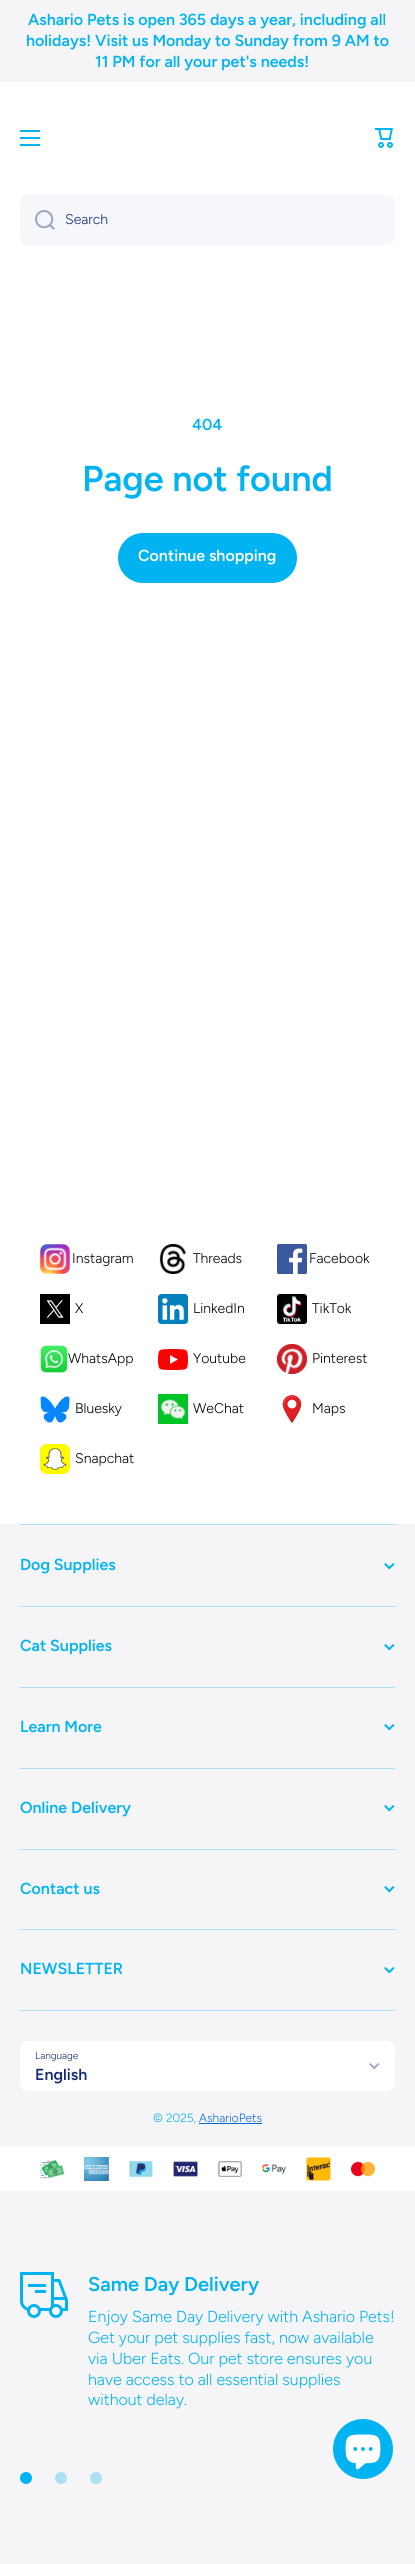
#include <cairo/cairo.h>
#include <math.h>
#include <stddef.h>


static void rounded_rect(cairo_t *cr, double x, double y, double w, double h, double r) {
  cairo_new_sub_path(cr);
  cairo_arc(cr, x + w - r, y + h - r, r, 0, M_PI / 2);
  cairo_arc(cr, x + r, y + h - r, r, M_PI / 2, M_PI);
  cairo_arc(cr, x + r, y + r, r, M_PI, 1.5 * M_PI);
  cairo_arc(cr, x + w - r, y + r, r, 1.5 * M_PI, 2 * M_PI);
  cairo_close_path(cr);
}

static void draw_image(cairo_t *cr, const char *path, double x, double y, double w, double h) {
  cairo_surface_t *image = cairo_image_surface_create_from_png(path);
  cairo_save(cr);
  cairo_set_source_surface(cr, image, x, y);
  cairo_rectangle(cr, x, y, w, h);
  cairo_fill(cr);
  cairo_restore(cr);
  cairo_surface_destroy(image);
}

static void draw(cairo_t *cr) {
  cairo_set_source_rgb(cr, 1, 1, 1);
  cairo_paint(cr);
  cairo_set_source_rgb(cr, 245 / 255.0, 245 / 255.0, 247 / 255.0);
  cairo_rectangle(cr, 0, 0, 415, 82);
  cairo_fill(cr);
  cairo_set_source_rgb(cr, 2 / 255.0, 179 / 255.0, 241 / 255.0);
  cairo_rectangle(cr, 20, 130, 20, 2);
  cairo_fill(cr);
  cairo_rectangle(cr, 20, 137, 20, 2);
  cairo_fill(cr);
  cairo_rectangle(cr, 20, 144, 20, 2);
  cairo_fill(cr);
  draw_image(cr, "images/1.png", 375, 128, 18, 20);
  cairo_set_source_rgb(cr, 246 / 255.0, 247 / 255.0, 250 / 255.0);
  rounded_rect(cr, 20, 195, 375, 50, 8);
  cairo_fill(cr);
  draw_image(cr, "images/2.png", 35, 210, 20, 20);
  cairo_set_source_rgb(cr, 2 / 255.0, 179 / 255.0, 241 / 255.0);
  rounded_rect(cr, 118, 533, 179, 50, 25);
  cairo_fill(cr);
  draw_image(cr, "images/3.png", 40, 1244, 30, 30);
  draw_image(cr, "images/4.png", 159, 1244, 28, 30);
  draw_image(cr, "images/5.png", 277, 1244, 30, 30);
  draw_image(cr, "images/6.png", 40, 1294, 30, 30);
  draw_image(cr, "images/7.png", 158, 1294, 30, 30);
  draw_image(cr, "images/8.png", 277, 1294, 30, 30);
  draw_image(cr, "images/9.png", 40, 1345, 28, 28);
  draw_image(cr, "images/10.png", 158, 1349, 30, 21);
  draw_image(cr, "images/11.png", 277, 1344, 30, 30);
  draw_image(cr, "images/12.png", 40, 1396, 30, 27);
  draw_image(cr, "images/13.png", 158, 1394, 30, 30);
  draw_image(cr, "images/14.png", 282, 1395, 20, 28);
  draw_image(cr, "images/15.png", 40, 1444, 30, 30);
  cairo_set_source_rgb(cr, 245 / 255.0, 245 / 255.0, 247 / 255.0);
  cairo_rectangle(cr, 0, 1524, 415, 623);
  cairo_fill(cr);
  cairo_set_source_rgb(cr, 172 / 255.0, 225 / 255.0, 245 / 255.0);
  cairo_rectangle(cr, 20, 1524, 375, 1);
  cairo_fill(cr);
  draw_image(cr, "images/16.png", 384, 1563, 11, 7);
  cairo_rectangle(cr, 20, 1606, 375, 1);
  cairo_fill(cr);
  draw_image(cr, "images/16.png", 384, 1644, 11, 7);
  cairo_rectangle(cr, 20, 1687, 375, 1);
  cairo_fill(cr);
  draw_image(cr, "images/16.png", 384, 1724, 11, 7);
  cairo_rectangle(cr, 20, 1768, 375, 1);
  cairo_fill(cr);
  draw_image(cr, "images/16.png", 384, 1805, 11, 7);
  cairo_rectangle(cr, 20, 1849, 375, 1);
  cairo_fill(cr);
  draw_image(cr, "images/16.png", 384, 1886, 11, 7);
  cairo_rectangle(cr, 20, 1929, 375, 1);
  cairo_fill(cr);
  draw_image(cr, "images/16.png", 384, 1967, 11, 7);
  cairo_rectangle(cr, 20, 2010, 375, 1);
  cairo_fill(cr);
  cairo_set_source_rgb(cr, 1, 1, 1);
  rounded_rect(cr, 20, 2041, 375, 50, 8);
  cairo_fill(cr);
  draw_image(cr, "images/17.png", 369, 2063, 11, 7);
  cairo_set_source_rgb(cr, 5 / 255.0, 104 / 255.0, 214 / 255.0);
  cairo_rectangle(cr, 199, 2123, 63, 1);
  cairo_fill(cr);
  draw_image(cr, "images/18.png", 40, 2160, 24, 19);
  draw_image(cr, "images/19.png", 84, 2157, 25, 24);
  draw_image(cr, "images/20.png", 129, 2160, 24, 18);
  draw_image(cr, "images/21.png", 173, 2161, 25, 16);
  draw_image(cr, "images/22.png", 218, 2161, 24, 16);
  draw_image(cr, "images/23.png", 262, 2163, 24, 12);
  draw_image(cr, "images/24.png", 306, 2157, 25, 24);
  draw_image(cr, "images/25.png", 351, 2161, 24, 16);
  cairo_set_source_rgb(cr, 245 / 255.0, 245 / 255.0, 247 / 255.0);
  cairo_rectangle(cr, 0, 2191, 415, 373);
  cairo_fill(cr);
  draw_image(cr, "images/26.png", 20, 2272, 48, 46);
  cairo_set_source_rgb(cr, 2 / 255.0, 179 / 255.0, 241 / 255.0);
  cairo_arc(cr, 26, 2478, 6, 0, 2 * M_PI);
  cairo_fill(cr);
  cairo_set_source_rgb(cr, 172 / 255.0, 225 / 255.0, 245 / 255.0);
  cairo_arc(cr, 61, 2478, 6, 0, 2 * M_PI);
  cairo_fill(cr);
  cairo_arc(cr, 96, 2478, 6, 0, 2 * M_PI);
  cairo_fill(cr);
  cairo_set_source_rgb(cr, 2 / 255.0, 179 / 255.0, 241 / 255.0);
  cairo_arc(cr, 363, 2449, 30, 0, 2 * M_PI);
  cairo_fill(cr);
  draw_image(cr, "images/27.png", 345, 2434, 36, 36);
  cairo_select_font_face(cr, "Figtree SemiBold", CAIRO_FONT_SLANT_NORMAL, CAIRO_FONT_WEIGHT_NORMAL);
  cairo_set_font_size(cr, 16);
  cairo_move_to(cr, 28, 25);
  cairo_show_text(cr, "Ashario Pets is open 365 days a year, including all");
  cairo_move_to(cr, 26, 46);
  cairo_show_text(cr, "holidays! Visit us Monday to Sunday from 9 AM to");
  cairo_move_to(cr, 95, 67);
  cairo_show_text(cr, "11 PM for all your pet's needs!");
  cairo_select_font_face(cr, "Figtree Light", CAIRO_FONT_SLANT_NORMAL, CAIRO_FONT_WEIGHT_NORMAL);
  cairo_set_font_size(cr, 14);
  cairo_set_source_rgb(cr, 20 / 255.0, 44 / 255.0, 115 / 255.0);
  cairo_move_to(cr, 65, 224);
  cairo_show_text(cr, "Search");
  cairo_select_font_face(cr, "Figtree SemiBold", CAIRO_FONT_SLANT_NORMAL, CAIRO_FONT_WEIGHT_NORMAL);
  cairo_set_font_size(cr, 16);
  cairo_set_source_rgb(cr, 2 / 255.0, 179 / 255.0, 241 / 255.0);
  cairo_move_to(cr, 192, 430);
  cairo_show_text(cr, "404");
  cairo_set_font_size(cr, 36);
  cairo_move_to(cr, 82, 491);
  cairo_show_text(cr, "Page not found");
  cairo_set_font_size(cr, 16);
  cairo_set_source_rgb(cr, 1, 1, 1);
  cairo_move_to(cr, 138, 561);
  cairo_show_text(cr, "Continue shopping");
  cairo_select_font_face(cr, "Figtree Light", CAIRO_FONT_SLANT_NORMAL, CAIRO_FONT_WEIGHT_NORMAL);
  cairo_set_font_size(cr, 14);
  cairo_set_source_rgb(cr, 0, 0, 0);
  cairo_move_to(cr, 72, 1263);
  cairo_show_text(cr, "Instagram");
  cairo_move_to(cr, 193, 1263);
  cairo_show_text(cr, "Threads");
  cairo_move_to(cr, 309, 1263);
  cairo_show_text(cr, "Facebook");
  cairo_move_to(cr, 75, 1313);
  cairo_show_text(cr, "X");
  cairo_move_to(cr, 193, 1313);
  cairo_show_text(cr, "LinkedIn");
  cairo_move_to(cr, 312, 1313);
  cairo_show_text(cr, "TikTok");
  cairo_move_to(cr, 68, 1363);
  cairo_show_text(cr, "WhatsApp");
  cairo_move_to(cr, 193, 1363);
  cairo_show_text(cr, "Youtube");
  cairo_move_to(cr, 312, 1363);
  cairo_show_text(cr, "Pinterest");
  cairo_move_to(cr, 75, 1413);
  cairo_show_text(cr, "Bluesky");
  cairo_move_to(cr, 193, 1413);
  cairo_show_text(cr, "WeChat");
  cairo_move_to(cr, 312, 1413);
  cairo_show_text(cr, "Maps");
  cairo_move_to(cr, 75, 1463);
  cairo_show_text(cr, "Snapchat");
  cairo_select_font_face(cr, "Figtree SemiBold", CAIRO_FONT_SLANT_NORMAL, CAIRO_FONT_WEIGHT_NORMAL);
  cairo_set_font_size(cr, 16);
  cairo_set_source_rgb(cr, 2 / 255.0, 179 / 255.0, 241 / 255.0);
  cairo_move_to(cr, 20, 1570);
  cairo_show_text(cr, "Dog Supplies");
  cairo_move_to(cr, 20, 1651);
  cairo_show_text(cr, "Cat Supplies");
  cairo_move_to(cr, 20, 1732);
  cairo_show_text(cr, "Learn More");
  cairo_move_to(cr, 20, 1813);
  cairo_show_text(cr, "Online Delivery");
  cairo_move_to(cr, 20, 1894);
  cairo_show_text(cr, "Contact us");
  cairo_move_to(cr, 20, 1974);
  cairo_show_text(cr, "NEWSLETTER");
  cairo_select_font_face(cr, "Figtree Light", CAIRO_FONT_SLANT_NORMAL, CAIRO_FONT_WEIGHT_NORMAL);
  cairo_set_font_size(cr, 10);
  cairo_set_source_rgb(cr, 20 / 255.0, 44 / 255.0, 115 / 255.0);
  cairo_move_to(cr, 35, 2059);
  cairo_show_text(cr, "Language");
  cairo_select_font_face(cr, "Figtree SemiBold", CAIRO_FONT_SLANT_NORMAL, CAIRO_FONT_WEIGHT_NORMAL);
  cairo_set_font_size(cr, 16);
  cairo_move_to(cr, 35, 2080);
  cairo_show_text(cr, "English");
  cairo_select_font_face(cr, "Figtree Light", CAIRO_FONT_SLANT_NORMAL, CAIRO_FONT_WEIGHT_NORMAL);
  cairo_set_font_size(cr, 12);
  cairo_set_source_rgb(cr, 2 / 255.0, 179 / 255.0, 241 / 255.0);
  cairo_move_to(cr, 153, 2122);
  cairo_show_text(cr, "© 2025,");
  cairo_set_source_rgb(cr, 5 / 255.0, 104 / 255.0, 214 / 255.0);
  cairo_move_to(cr, 199, 2122);
  cairo_show_text(cr, "AsharioPets");
  cairo_select_font_face(cr, "Figtree SemiBold", CAIRO_FONT_SLANT_NORMAL, CAIRO_FONT_WEIGHT_NORMAL);
  cairo_set_font_size(cr, 20);
  cairo_set_source_rgb(cr, 2 / 255.0, 179 / 255.0, 241 / 255.0);
  cairo_move_to(cr, 88, 2291);
  cairo_show_text(cr, "Same Day Delivery");
  cairo_select_font_face(cr, "Figtree Light", CAIRO_FONT_SLANT_NORMAL, CAIRO_FONT_WEIGHT_NORMAL);
  cairo_set_font_size(cr, 16);
  cairo_move_to(cr, 88, 2322);
  cairo_show_text(cr, "Enjoy Same Day Delivery with Ashario Pets!");
  cairo_move_to(cr, 88, 2343);
  cairo_show_text(cr, "Get your pet supplies fast, now available");
  cairo_move_to(cr, 88, 2364);
  cairo_show_text(cr, "via Uber Eats. Our pet store ensures you");
  cairo_move_to(cr, 88, 2385);
  cairo_show_text(cr, "have access to all essential supplies");
  cairo_move_to(cr, 88, 2405);
  cairo_show_text(cr, "without delay.");
}

int main(void) {
  cairo_surface_t *surface = cairo_image_surface_create(CAIRO_FORMAT_RGB24, 415, 2564);
  cairo_t *cr = cairo_create(surface);
  cairo_font_options_t *options = cairo_font_options_create();
  cairo_font_options_set_hint_metrics(options, CAIRO_HINT_METRICS_OFF);
  cairo_font_options_set_hint_style(options, CAIRO_HINT_STYLE_NONE);
  cairo_set_font_options(cr, options);
  cairo_set_miter_limit(cr, 4);
  draw(cr);
  cairo_surface_write_to_png(surface, "out.png");
  cairo_font_options_destroy(options);
  cairo_destroy(cr);
  cairo_surface_destroy(surface);
  return 0;
}
